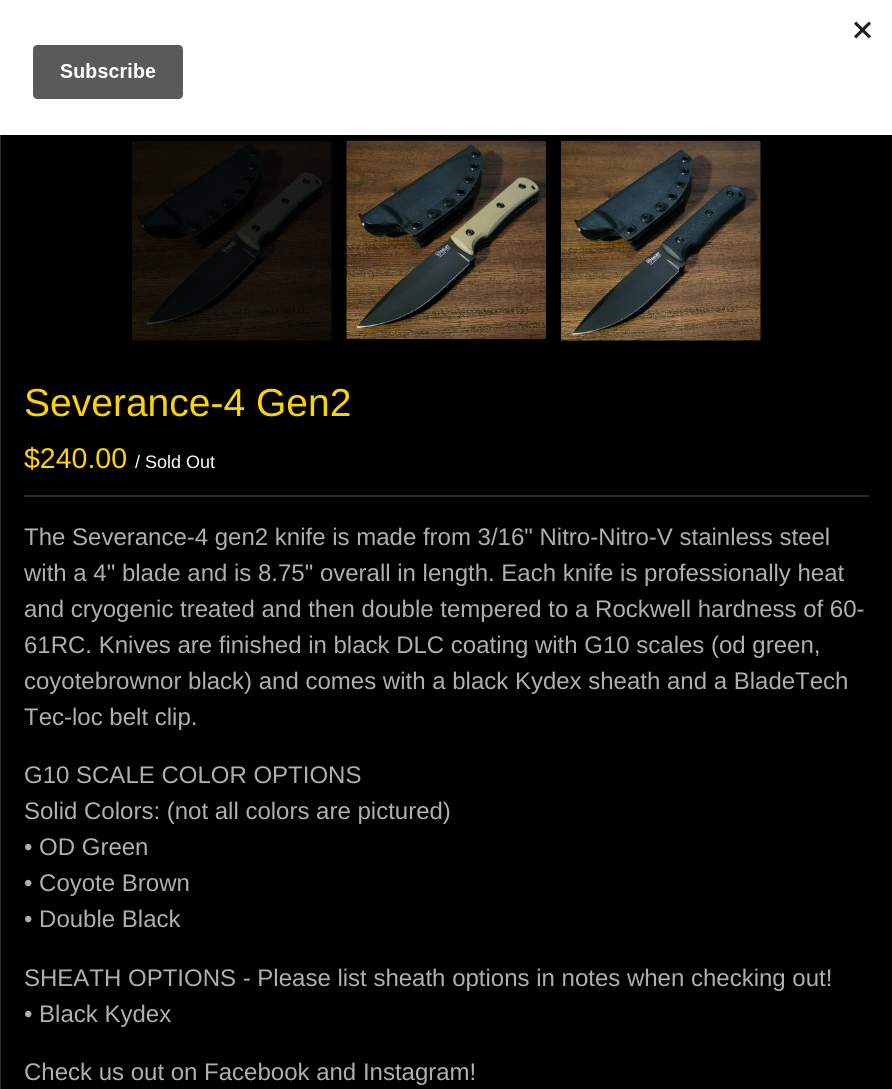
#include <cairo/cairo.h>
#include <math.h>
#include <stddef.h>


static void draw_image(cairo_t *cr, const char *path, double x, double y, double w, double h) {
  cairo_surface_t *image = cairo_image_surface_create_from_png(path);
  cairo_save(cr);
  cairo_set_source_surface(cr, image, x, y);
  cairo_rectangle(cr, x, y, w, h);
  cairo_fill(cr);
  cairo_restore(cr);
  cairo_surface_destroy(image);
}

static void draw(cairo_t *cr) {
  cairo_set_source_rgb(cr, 0, 0, 0);
  cairo_paint(cr);
  cairo_set_source_rgb(cr, 1, 1, 1);
  cairo_rectangle(cr, 0, 0, 892, 135);
  cairo_fill(cr);
  draw_image(cr, "images/1.png", 32, 21, 839, 78);
  cairo_set_source_rgb(cr, 43 / 255.0, 43 / 255.0, 43 / 255.0);
  cairo_rectangle(cr, 0, 135, 1, 954);
  cairo_fill(cr);
  draw_image(cr, "images/2.png", 132, 141, 200, 200);
  draw_image(cr, "images/3.png", 346, 141, 200, 198);
  draw_image(cr, "images/4.png", 561, 141, 200, 200);
  cairo_rectangle(cr, 24, 495, 845, 2);
  cairo_fill(cr);
  cairo_select_font_face(cr, "Liberation Sans", CAIRO_FONT_SLANT_NORMAL, CAIRO_FONT_WEIGHT_NORMAL);
  cairo_set_font_size(cr, 39);
  cairo_set_source_rgb(cr, 252 / 255.0, 211 / 255.0, 5 / 255.0);
  cairo_move_to(cr, 24, 416);
  cairo_show_text(cr, "Severance-4 Gen2");
  cairo_set_font_size(cr, 28.5);
  cairo_move_to(cr, 24, 468);
  cairo_show_text(cr, "$240.00");
  cairo_set_font_size(cr, 18);
  cairo_set_source_rgb(cr, 1, 1, 1);
  cairo_move_to(cr, 135, 468);
  cairo_show_text(cr, "/ Sold Out");
  cairo_set_font_size(cr, 24);
  cairo_set_source_rgb(cr, 175 / 255.0, 175 / 255.0, 175 / 255.0);
  cairo_move_to(cr, 24, 545);
  cairo_show_text(cr, "The Severance-4 gen2 knife is made from 3/16\" Nitro-Nitro-V stainless steel");
  cairo_move_to(cr, 24, 581);
  cairo_show_text(cr, "with a 4\" blade and is 8.75\" overall in length. Each knife is professionally heat");
  cairo_move_to(cr, 24, 617);
  cairo_show_text(cr, "and cryogenic treated and then double tempered to a Rockwell hardness of 60-");
  cairo_move_to(cr, 24, 653);
  cairo_show_text(cr, "61RC. Knives are finished in black DLC coating with G10 scales (od green,");
  cairo_move_to(cr, 24, 689);
  cairo_show_text(cr, "coyotebrownor black) and comes with a black Kydex sheath and a BladeTech");
  cairo_move_to(cr, 24, 725);
  cairo_show_text(cr, "Tec-loc belt clip.");
  cairo_move_to(cr, 24, 783);
  cairo_show_text(cr, "G10 SCALE COLOR OPTIONS");
  cairo_move_to(cr, 24, 819);
  cairo_show_text(cr, "Solid Colors: (not all colors are pictured)");
  cairo_move_to(cr, 24, 855);
  cairo_show_text(cr, "• OD Green");
  cairo_move_to(cr, 24, 891);
  cairo_show_text(cr, "• Coyote Brown");
  cairo_move_to(cr, 24, 927);
  cairo_show_text(cr, "• Double Black");
  cairo_move_to(cr, 24, 986);
  cairo_show_text(cr, "SHEATH OPTIONS - Please list sheath options in notes when checking out!");
  cairo_move_to(cr, 24, 1022);
  cairo_show_text(cr, "• Black Kydex");
  cairo_move_to(cr, 24, 1080);
  cairo_show_text(cr, "Check us out on Facebook and Instagram!");
}

int main(void) {
  cairo_surface_t *surface = cairo_image_surface_create(CAIRO_FORMAT_RGB24, 892, 1089);
  cairo_t *cr = cairo_create(surface);
  cairo_font_options_t *options = cairo_font_options_create();
  cairo_font_options_set_hint_metrics(options, CAIRO_HINT_METRICS_OFF);
  cairo_font_options_set_hint_style(options, CAIRO_HINT_STYLE_NONE);
  cairo_set_font_options(cr, options);
  cairo_set_miter_limit(cr, 4);
  draw(cr);
  cairo_surface_write_to_png(surface, "out.png");
  cairo_font_options_destroy(options);
  cairo_destroy(cr);
  cairo_surface_destroy(surface);
  return 0;
}
